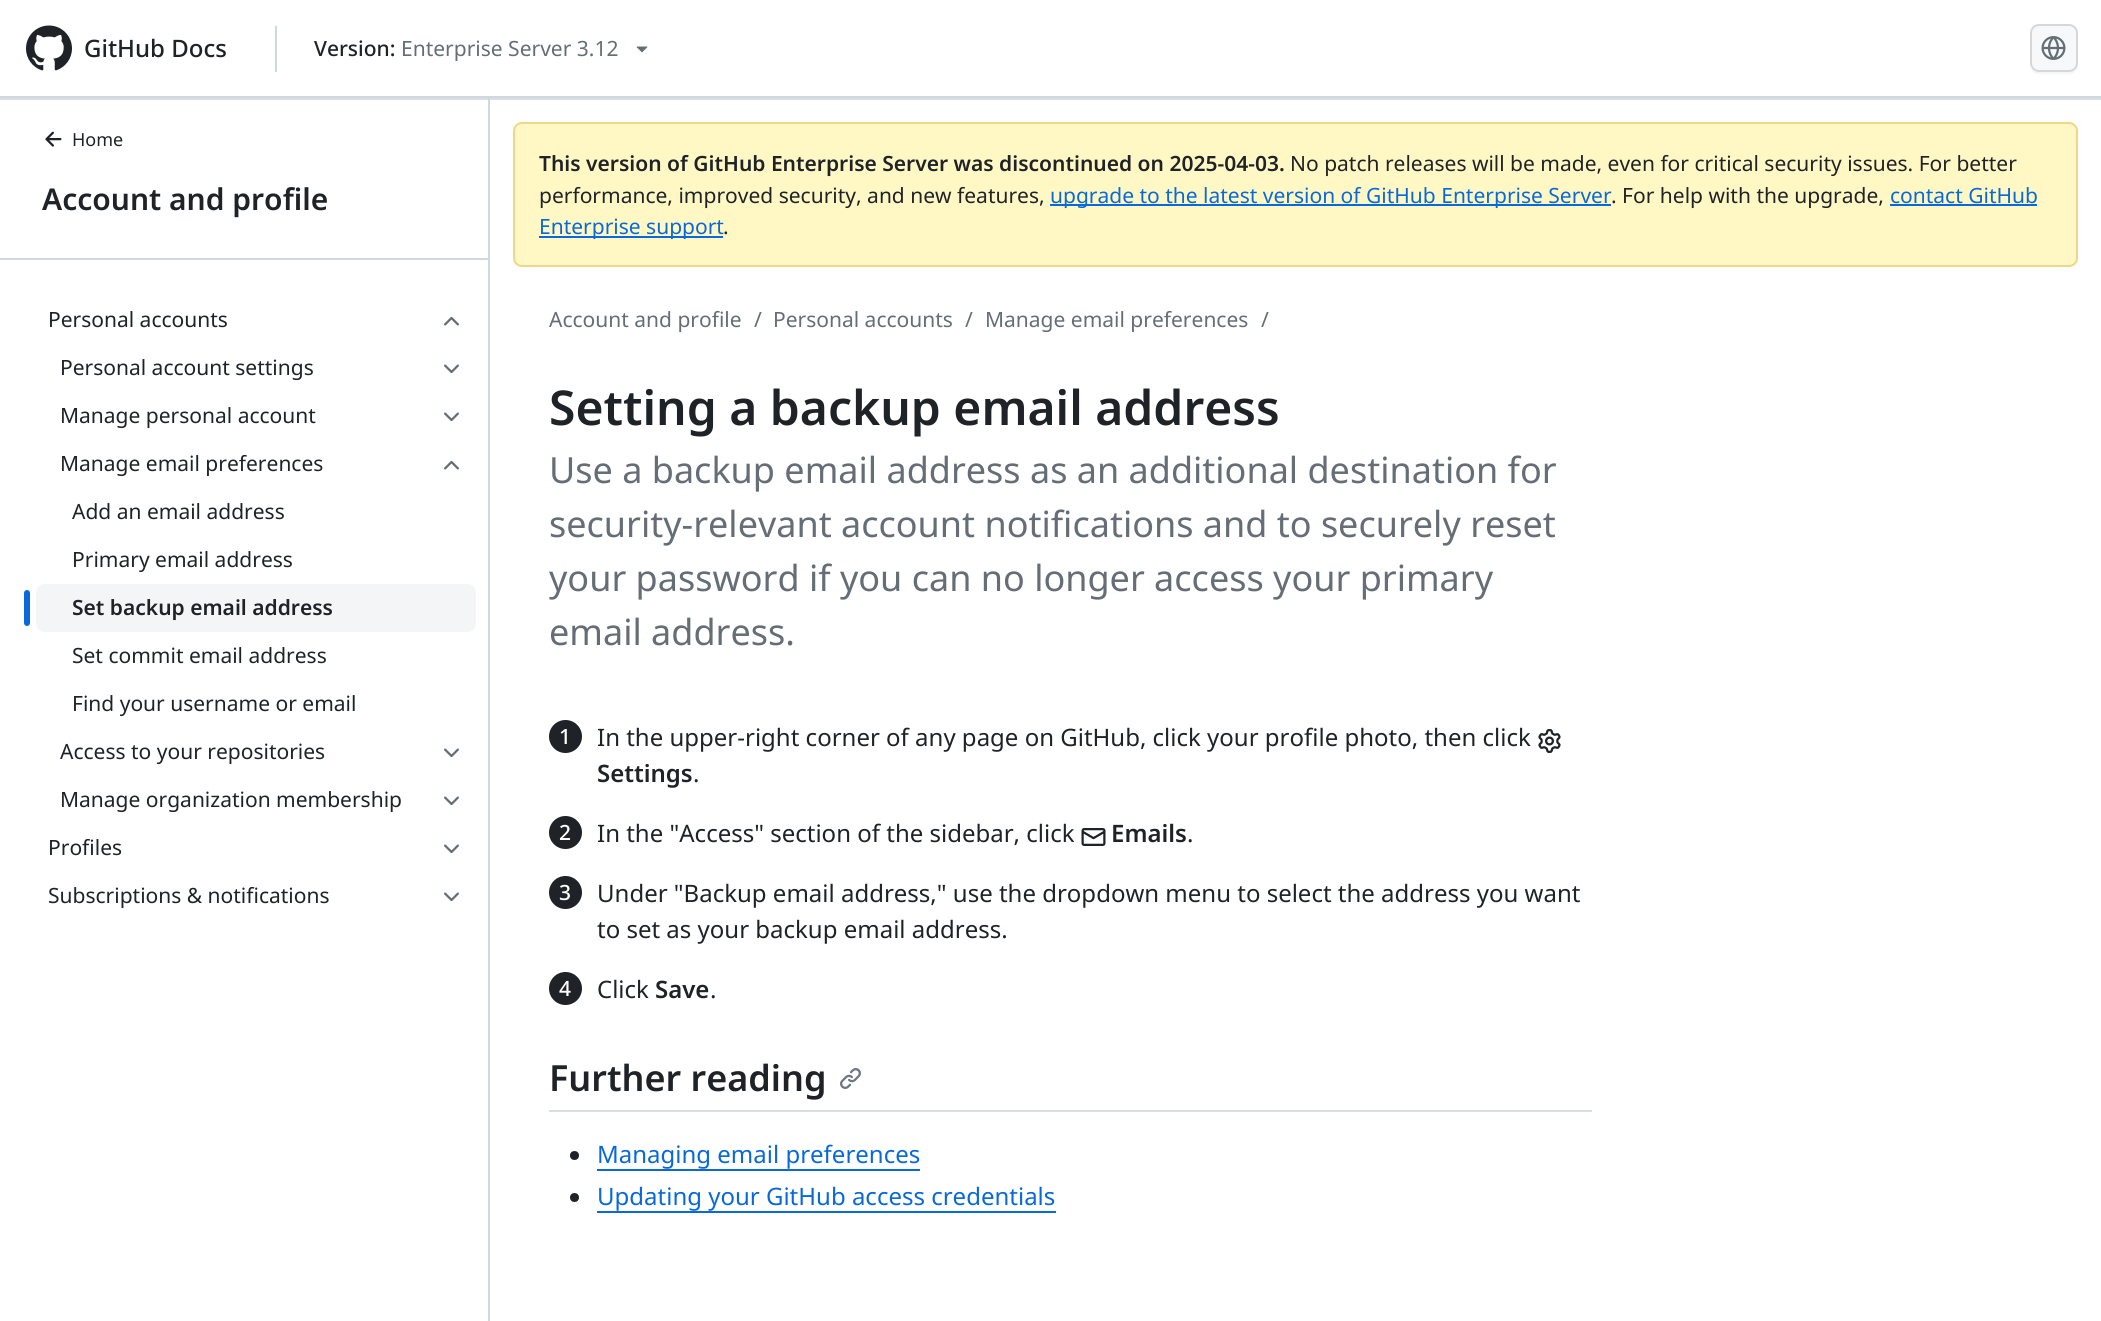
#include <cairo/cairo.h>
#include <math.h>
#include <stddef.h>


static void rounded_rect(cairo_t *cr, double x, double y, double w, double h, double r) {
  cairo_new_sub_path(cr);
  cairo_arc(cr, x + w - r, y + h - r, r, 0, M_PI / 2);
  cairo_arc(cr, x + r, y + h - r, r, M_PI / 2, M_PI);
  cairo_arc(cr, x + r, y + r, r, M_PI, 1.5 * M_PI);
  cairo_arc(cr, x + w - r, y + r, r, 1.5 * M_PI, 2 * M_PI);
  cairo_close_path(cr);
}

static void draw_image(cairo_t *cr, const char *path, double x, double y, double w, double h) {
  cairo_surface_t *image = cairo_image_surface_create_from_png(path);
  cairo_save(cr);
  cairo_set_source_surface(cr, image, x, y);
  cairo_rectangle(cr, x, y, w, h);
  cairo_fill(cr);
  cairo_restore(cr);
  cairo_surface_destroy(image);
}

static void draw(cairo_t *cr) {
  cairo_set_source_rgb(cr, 1, 1, 1);
  cairo_paint(cr);
  cairo_set_source_rgb(cr, 216 / 255.0, 222 / 255.0, 228 / 255.0);
  cairo_rectangle(cr, 0, 98, 2101, 2);
  cairo_fill(cr);
  cairo_set_source_rgb(cr, 208 / 255.0, 215 / 255.0, 222 / 255.0);
  cairo_rectangle(cr, 0, 96, 2101, 2);
  cairo_fill(cr);
  draw_image(cr, "images/1.png", 26, 25, 46, 46);
  cairo_rectangle(cr, 275, 26, 2, 46);
  cairo_fill(cr);
  draw_image(cr, "images/2.png", 636, 46, 12, 7);
  cairo_set_source_rgb(cr, 246 / 255.0, 246 / 255.0, 246 / 255.0);
  cairo_new_path(cr);
  cairo_move_to(cr, 2030, 66);
  cairo_curve_to(cr, 2031, 71, 2034, 74, 2039, 74);
  cairo_line_to(cr, 2069, 74);
  cairo_curve_to(cr, 2074, 74, 2078, 70, 2078, 65);
  cairo_line_to(cr, 2078, 35);
  cairo_line_to(cr, 2077, 32);
  cairo_line_to(cr, 2077, 65);
  cairo_line_to(cr, 2076, 68);
  cairo_curve_to(cr, 2073, 72, 2068, 72, 2064, 72);
  cairo_line_to(cr, 2044, 72);
  cairo_curve_to(cr, 2038, 72, 2032, 72, 2030, 66);
  cairo_close_path(cr);
  cairo_fill(cr);
  cairo_set_source_rgb(cr, 246 / 255.0, 248 / 255.0, 250 / 255.0);
  rounded_rect(cr, 2030, 24, 48, 48, 9);
  cairo_fill(cr);
  rounded_rect(cr, 2031, 25, 46, 46, 8);
  cairo_set_source_rgba(cr, 31 / 255.0, 35 / 255.0, 40 / 255.0, 0.15);
  cairo_stroke(cr);
  draw_image(cr, "images/3.png", 2041, 36, 25, 24);
  cairo_set_source_rgb(cr, 208 / 255.0, 215 / 255.0, 222 / 255.0);
  cairo_rectangle(cr, 488, 98, 2, 1223);
  cairo_fill(cr);
  cairo_rectangle(cr, 0, 258, 488, 2);
  cairo_fill(cr);
  draw_image(cr, "images/4.png", 45, 131, 17, 16);
  draw_image(cr, "images/5.png", 444, 316, 15, 10);
  draw_image(cr, "images/6.png", 444, 364, 15, 10);
  draw_image(cr, "images/6.png", 444, 412, 15, 10);
  draw_image(cr, "images/5.png", 444, 460, 15, 10);
  cairo_set_source_rgb(cr, 244 / 255.0, 245 / 255.0, 247 / 255.0);
  rounded_rect(cr, 36, 584, 440, 48, 9);
  cairo_fill(cr);
  cairo_set_source_rgb(cr, 9 / 255.0, 105 / 255.0, 218 / 255.0);
  rounded_rect(cr, 24, 590, 6, 36, 3);
  cairo_fill(cr);
  draw_image(cr, "images/6.png", 444, 748, 15, 10);
  draw_image(cr, "images/6.png", 444, 796, 15, 10);
  draw_image(cr, "images/6.png", 444, 844, 15, 10);
  draw_image(cr, "images/6.png", 444, 892, 15, 10);
  cairo_set_source_rgb(cr, 1, 248 / 255.0, 197 / 255.0);
  rounded_rect(cr, 513, 122, 1565, 145, 9);
  cairo_fill(cr);
  rounded_rect(cr, 514, 123, 1563, 143, 8);
  cairo_set_source_rgba(cr, 212 / 255.0, 167 / 255.0, 44 / 255.0, 0.4);
  cairo_stroke(cr);
  cairo_set_source_rgb(cr, 9 / 255.0, 105 / 255.0, 218 / 255.0);
  cairo_rectangle(cr, 1050, 204, 561, 2);
  cairo_fill(cr);
  cairo_rectangle(cr, 1890, 204, 147, 2);
  cairo_fill(cr);
  cairo_rectangle(cr, 539, 236, 184, 2);
  cairo_fill(cr);
  cairo_set_source_rgb(cr, 31 / 255.0, 35 / 255.0, 40 / 255.0);
  cairo_arc(cr, 565.5, 736.5, 16.5, 0, 2 * M_PI);
  cairo_fill(cr);
  draw_image(cr, "images/7.png", 1538, 729, 23, 24);
  cairo_arc(cr, 565.5, 832.5, 16.5, 0, 2 * M_PI);
  cairo_fill(cr);
  draw_image(cr, "images/8.png", 1081, 828, 25, 18);
  cairo_arc(cr, 565.5, 892.5, 16.5, 0, 2 * M_PI);
  cairo_fill(cr);
  cairo_arc(cr, 565.5, 988.5, 16.5, 0, 2 * M_PI);
  cairo_fill(cr);
  cairo_set_source_rgb(cr, 216 / 255.0, 222 / 255.0, 228 / 255.0);
  cairo_rectangle(cr, 549, 1110, 1043, 2);
  cairo_fill(cr);
  draw_image(cr, "images/9.png", 840, 1068, 21, 21);
  cairo_set_source_rgb(cr, 31 / 255.0, 35 / 255.0, 40 / 255.0);
  cairo_arc(cr, 574.5, 1155.5, 4.5, 0, 2 * M_PI);
  cairo_fill(cr);
  cairo_set_source_rgb(cr, 9 / 255.0, 105 / 255.0, 218 / 255.0);
  cairo_rectangle(cr, 597, 1169, 323, 2);
  cairo_fill(cr);
  cairo_set_source_rgb(cr, 31 / 255.0, 35 / 255.0, 40 / 255.0);
  cairo_arc(cr, 574.5, 1197.5, 4.5, 0, 2 * M_PI);
  cairo_fill(cr);
  cairo_set_source_rgb(cr, 9 / 255.0, 105 / 255.0, 218 / 255.0);
  cairo_rectangle(cr, 597, 1211, 459, 2);
  cairo_fill(cr);
  cairo_select_font_face(cr, "Noto Sans Medium", CAIRO_FONT_SLANT_NORMAL, CAIRO_FONT_WEIGHT_NORMAL);
  cairo_set_font_size(cr, 24);
  cairo_set_source_rgb(cr, 31 / 255.0, 35 / 255.0, 40 / 255.0);
  cairo_move_to(cr, 84, 57);
  cairo_show_text(cr, "GitHub Docs");
  cairo_set_font_size(cr, 21);
  cairo_move_to(cr, 314, 56);
  cairo_show_text(cr, "Version:");
  cairo_select_font_face(cr, "Noto Sans", CAIRO_FONT_SLANT_NORMAL, CAIRO_FONT_WEIGHT_NORMAL);
  cairo_set_source_rgb(cr, 101 / 255.0, 109 / 255.0, 118 / 255.0);
  cairo_move_to(cr, 401, 56);
  cairo_show_text(cr, "Enterprise Server 3.12");
  cairo_set_font_size(cr, 18);
  cairo_set_source_rgb(cr, 31 / 255.0, 35 / 255.0, 40 / 255.0);
  cairo_move_to(cr, 72, 146);
  cairo_show_text(cr, "Home");
  cairo_select_font_face(cr, "Noto Sans SemiBold", CAIRO_FONT_SLANT_NORMAL, CAIRO_FONT_WEIGHT_NORMAL);
  cairo_set_font_size(cr, 30);
  cairo_move_to(cr, 42, 210);
  cairo_show_text(cr, "Account and profile");
  cairo_select_font_face(cr, "Noto Sans", CAIRO_FONT_SLANT_NORMAL, CAIRO_FONT_WEIGHT_NORMAL);
  cairo_set_font_size(cr, 21);
  cairo_move_to(cr, 48, 327);
  cairo_show_text(cr, "Personal accounts");
  cairo_move_to(cr, 60, 375);
  cairo_show_text(cr, "Personal account settings");
  cairo_move_to(cr, 60, 423);
  cairo_show_text(cr, "Manage personal account");
  cairo_move_to(cr, 60, 471);
  cairo_show_text(cr, "Manage email preferences");
  cairo_move_to(cr, 72, 519);
  cairo_show_text(cr, "Add an email address");
  cairo_move_to(cr, 72, 567);
  cairo_show_text(cr, "Primary email address");
  cairo_select_font_face(cr, "Noto Sans SemiBold", CAIRO_FONT_SLANT_NORMAL, CAIRO_FONT_WEIGHT_NORMAL);
  cairo_move_to(cr, 72, 615);
  cairo_show_text(cr, "Set backup email address");
  cairo_select_font_face(cr, "Noto Sans", CAIRO_FONT_SLANT_NORMAL, CAIRO_FONT_WEIGHT_NORMAL);
  cairo_move_to(cr, 72, 663);
  cairo_show_text(cr, "Set commit email address");
  cairo_move_to(cr, 72, 711);
  cairo_show_text(cr, "Find your username or email");
  cairo_move_to(cr, 60, 759);
  cairo_show_text(cr, "Access to your repositories");
  cairo_move_to(cr, 60, 807);
  cairo_show_text(cr, "Manage organization membership");
  cairo_move_to(cr, 48, 855);
  cairo_show_text(cr, "Profiles");
  cairo_move_to(cr, 48, 903);
  cairo_show_text(cr, "Subscriptions & notifications");
  cairo_select_font_face(cr, "Noto Sans SemiBold", CAIRO_FONT_SLANT_NORMAL, CAIRO_FONT_WEIGHT_NORMAL);
  cairo_move_to(cr, 539, 171);
  cairo_show_text(cr, "This version of GitHub Enterprise Server was discontinued on 2025-04-03.");
  cairo_select_font_face(cr, "Noto Sans", CAIRO_FONT_SLANT_NORMAL, CAIRO_FONT_WEIGHT_NORMAL);
  cairo_move_to(cr, 1290, 171);
  cairo_show_text(cr, "No patch releases will be made, even for critical security issues. For better");
  cairo_move_to(cr, 539, 203);
  cairo_show_text(cr, "performance, improved security, and new features,");
  cairo_set_source_rgb(cr, 9 / 255.0, 105 / 255.0, 218 / 255.0);
  cairo_move_to(cr, 1050, 203);
  cairo_show_text(cr, "upgrade to the latest version of GitHub Enterprise Server");
  cairo_set_source_rgb(cr, 31 / 255.0, 35 / 255.0, 40 / 255.0);
  cairo_move_to(cr, 1611, 203);
  cairo_show_text(cr, ". For help with the upgrade,");
  cairo_set_source_rgb(cr, 9 / 255.0, 105 / 255.0, 218 / 255.0);
  cairo_move_to(cr, 1890, 203);
  cairo_show_text(cr, "contact GitHub");
  cairo_move_to(cr, 539, 234);
  cairo_show_text(cr, "Enterprise support");
  cairo_set_source_rgb(cr, 31 / 255.0, 35 / 255.0, 40 / 255.0);
  cairo_move_to(cr, 723, 234);
  cairo_show_text(cr, ".");
  cairo_set_source_rgb(cr, 101 / 255.0, 109 / 255.0, 118 / 255.0);
  cairo_move_to(cr, 549, 327);
  cairo_show_text(cr, "Account and profile");
  cairo_move_to(cr, 754, 327);
  cairo_show_text(cr, "/");
  cairo_move_to(cr, 773, 327);
  cairo_show_text(cr, "Personal accounts");
  cairo_move_to(cr, 965, 327);
  cairo_show_text(cr, "/");
  cairo_move_to(cr, 985, 327);
  cairo_show_text(cr, "Manage email preferences");
  cairo_move_to(cr, 1261, 327);
  cairo_show_text(cr, "/");
  cairo_select_font_face(cr, "Noto Sans SemiBold", CAIRO_FONT_SLANT_NORMAL, CAIRO_FONT_WEIGHT_NORMAL);
  cairo_set_font_size(cr, 48);
  cairo_set_source_rgb(cr, 31 / 255.0, 35 / 255.0, 40 / 255.0);
  cairo_move_to(cr, 549, 425);
  cairo_show_text(cr, "Setting a backup email address");
  cairo_select_font_face(cr, "Noto Sans", CAIRO_FONT_SLANT_NORMAL, CAIRO_FONT_WEIGHT_NORMAL);
  cairo_set_font_size(cr, 36);
  cairo_set_source_rgb(cr, 101 / 255.0, 109 / 255.0, 118 / 255.0);
  cairo_move_to(cr, 549, 483);
  cairo_show_text(cr, "Use a backup email address as an additional destination for");
  cairo_move_to(cr, 549, 537);
  cairo_show_text(cr, "security-relevant account notifications and to securely reset");
  cairo_move_to(cr, 549, 591);
  cairo_show_text(cr, "your password if you can no longer access your primary");
  cairo_move_to(cr, 549, 645);
  cairo_show_text(cr, "email address.");
  cairo_select_font_face(cr, "Noto Sans Medium", CAIRO_FONT_SLANT_NORMAL, CAIRO_FONT_WEIGHT_NORMAL);
  cairo_set_font_size(cr, 21);
  cairo_set_source_rgb(cr, 1, 1, 1);
  cairo_move_to(cr, 559, 744);
  cairo_show_text(cr, "1");
  cairo_select_font_face(cr, "Noto Sans", CAIRO_FONT_SLANT_NORMAL, CAIRO_FONT_WEIGHT_NORMAL);
  cairo_set_font_size(cr, 24);
  cairo_set_source_rgb(cr, 31 / 255.0, 35 / 255.0, 40 / 255.0);
  cairo_move_to(cr, 597, 746);
  cairo_show_text(cr, "In the upper-right corner of any page on GitHub, click your profile photo, then click");
  cairo_select_font_face(cr, "Noto Sans SemiBold", CAIRO_FONT_SLANT_NORMAL, CAIRO_FONT_WEIGHT_NORMAL);
  cairo_move_to(cr, 597, 782);
  cairo_show_text(cr, "Settings");
  cairo_select_font_face(cr, "Noto Sans", CAIRO_FONT_SLANT_NORMAL, CAIRO_FONT_WEIGHT_NORMAL);
  cairo_move_to(cr, 693, 782);
  cairo_show_text(cr, ".");
  cairo_select_font_face(cr, "Noto Sans Medium", CAIRO_FONT_SLANT_NORMAL, CAIRO_FONT_WEIGHT_NORMAL);
  cairo_set_font_size(cr, 21);
  cairo_set_source_rgb(cr, 1, 1, 1);
  cairo_move_to(cr, 559, 840);
  cairo_show_text(cr, "2");
  cairo_select_font_face(cr, "Noto Sans", CAIRO_FONT_SLANT_NORMAL, CAIRO_FONT_WEIGHT_NORMAL);
  cairo_set_font_size(cr, 24);
  cairo_set_source_rgb(cr, 31 / 255.0, 35 / 255.0, 40 / 255.0);
  cairo_move_to(cr, 597, 842);
  cairo_show_text(cr, "In the \"Access\" section of the sidebar, click");
  cairo_select_font_face(cr, "Noto Sans SemiBold", CAIRO_FONT_SLANT_NORMAL, CAIRO_FONT_WEIGHT_NORMAL);
  cairo_move_to(cr, 1111, 842);
  cairo_show_text(cr, "Emails");
  cairo_select_font_face(cr, "Noto Sans", CAIRO_FONT_SLANT_NORMAL, CAIRO_FONT_WEIGHT_NORMAL);
  cairo_move_to(cr, 1187, 842);
  cairo_show_text(cr, ".");
  cairo_select_font_face(cr, "Noto Sans Medium", CAIRO_FONT_SLANT_NORMAL, CAIRO_FONT_WEIGHT_NORMAL);
  cairo_set_font_size(cr, 21);
  cairo_set_source_rgb(cr, 1, 1, 1);
  cairo_move_to(cr, 559, 900);
  cairo_show_text(cr, "3");
  cairo_select_font_face(cr, "Noto Sans", CAIRO_FONT_SLANT_NORMAL, CAIRO_FONT_WEIGHT_NORMAL);
  cairo_set_font_size(cr, 24);
  cairo_set_source_rgb(cr, 31 / 255.0, 35 / 255.0, 40 / 255.0);
  cairo_move_to(cr, 597, 902);
  cairo_show_text(cr, "Under \"Backup email address,\" use the dropdown menu to select the address you want");
  cairo_move_to(cr, 597, 938);
  cairo_show_text(cr, "to set as your backup email address.");
  cairo_select_font_face(cr, "Noto Sans Medium", CAIRO_FONT_SLANT_NORMAL, CAIRO_FONT_WEIGHT_NORMAL);
  cairo_set_font_size(cr, 21);
  cairo_set_source_rgb(cr, 1, 1, 1);
  cairo_move_to(cr, 559, 996);
  cairo_show_text(cr, "4");
  cairo_select_font_face(cr, "Noto Sans", CAIRO_FONT_SLANT_NORMAL, CAIRO_FONT_WEIGHT_NORMAL);
  cairo_set_font_size(cr, 24);
  cairo_set_source_rgb(cr, 31 / 255.0, 35 / 255.0, 40 / 255.0);
  cairo_move_to(cr, 597, 998);
  cairo_show_text(cr, "Click");
  cairo_select_font_face(cr, "Noto Sans SemiBold", CAIRO_FONT_SLANT_NORMAL, CAIRO_FONT_WEIGHT_NORMAL);
  cairo_move_to(cr, 655, 998);
  cairo_show_text(cr, "Save");
  cairo_select_font_face(cr, "Noto Sans", CAIRO_FONT_SLANT_NORMAL, CAIRO_FONT_WEIGHT_NORMAL);
  cairo_move_to(cr, 710, 998);
  cairo_show_text(cr, ".");
  cairo_select_font_face(cr, "Noto Sans SemiBold", CAIRO_FONT_SLANT_NORMAL, CAIRO_FONT_WEIGHT_NORMAL);
  cairo_set_font_size(cr, 36);
  cairo_move_to(cr, 549, 1091);
  cairo_show_text(cr, "Further reading");
  cairo_select_font_face(cr, "Noto Sans", CAIRO_FONT_SLANT_NORMAL, CAIRO_FONT_WEIGHT_NORMAL);
  cairo_set_font_size(cr, 24);
  cairo_set_source_rgb(cr, 9 / 255.0, 105 / 255.0, 218 / 255.0);
  cairo_move_to(cr, 597, 1163);
  cairo_show_text(cr, "Managing email preferences");
  cairo_move_to(cr, 597, 1205);
  cairo_show_text(cr, "Updating your GitHub access credentials");
}

int main(void) {
  cairo_surface_t *surface = cairo_image_surface_create(CAIRO_FORMAT_RGB24, 2101, 1321);
  cairo_t *cr = cairo_create(surface);
  cairo_font_options_t *options = cairo_font_options_create();
  cairo_font_options_set_hint_metrics(options, CAIRO_HINT_METRICS_OFF);
  cairo_font_options_set_hint_style(options, CAIRO_HINT_STYLE_NONE);
  cairo_set_font_options(cr, options);
  cairo_set_miter_limit(cr, 4);
  draw(cr);
  cairo_surface_write_to_png(surface, "out.png");
  cairo_font_options_destroy(options);
  cairo_destroy(cr);
  cairo_surface_destroy(surface);
  return 0;
}
